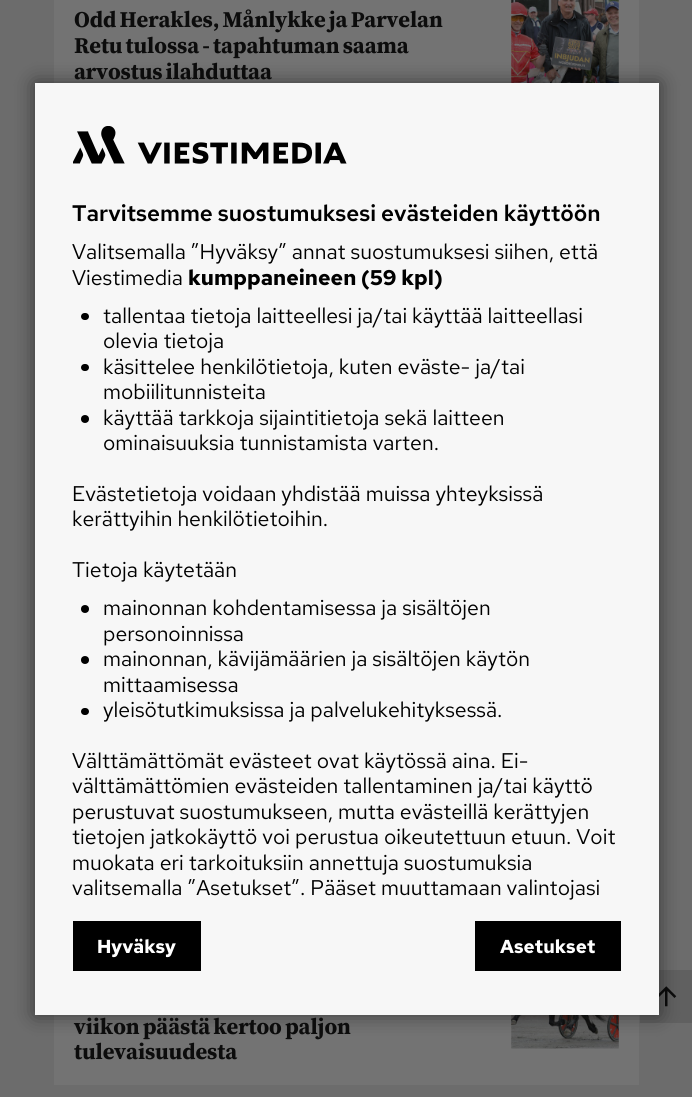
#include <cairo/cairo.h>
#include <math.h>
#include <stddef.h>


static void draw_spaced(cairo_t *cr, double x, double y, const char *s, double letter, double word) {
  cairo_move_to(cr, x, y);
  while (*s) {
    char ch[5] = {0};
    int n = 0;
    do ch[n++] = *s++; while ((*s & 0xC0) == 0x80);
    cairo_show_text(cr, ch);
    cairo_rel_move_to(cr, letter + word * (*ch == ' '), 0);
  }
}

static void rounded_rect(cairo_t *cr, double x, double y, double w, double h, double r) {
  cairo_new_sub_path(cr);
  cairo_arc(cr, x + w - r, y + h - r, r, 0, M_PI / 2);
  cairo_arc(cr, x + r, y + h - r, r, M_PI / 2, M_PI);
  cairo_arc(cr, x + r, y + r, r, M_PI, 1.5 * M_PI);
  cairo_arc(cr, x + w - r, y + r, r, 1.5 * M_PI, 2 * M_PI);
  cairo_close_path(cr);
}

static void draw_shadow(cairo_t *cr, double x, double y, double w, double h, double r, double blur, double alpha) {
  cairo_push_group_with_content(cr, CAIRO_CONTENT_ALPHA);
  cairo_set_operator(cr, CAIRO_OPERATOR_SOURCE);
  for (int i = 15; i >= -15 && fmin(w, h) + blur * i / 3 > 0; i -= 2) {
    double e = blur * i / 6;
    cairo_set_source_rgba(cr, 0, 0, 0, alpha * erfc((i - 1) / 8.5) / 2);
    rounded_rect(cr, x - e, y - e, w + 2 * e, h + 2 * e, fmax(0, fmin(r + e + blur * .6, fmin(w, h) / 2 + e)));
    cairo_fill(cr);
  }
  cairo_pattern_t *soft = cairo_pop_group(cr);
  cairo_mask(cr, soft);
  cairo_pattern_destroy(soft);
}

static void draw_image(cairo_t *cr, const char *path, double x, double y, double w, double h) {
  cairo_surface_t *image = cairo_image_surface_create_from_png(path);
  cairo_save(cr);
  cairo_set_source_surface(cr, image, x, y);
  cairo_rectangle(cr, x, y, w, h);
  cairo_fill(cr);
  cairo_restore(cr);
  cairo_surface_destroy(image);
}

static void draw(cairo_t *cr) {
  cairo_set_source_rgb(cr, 108 / 255.0, 108 / 255.0, 108 / 255.0);
  cairo_paint(cr);
  cairo_set_source_rgb(cr, 115 / 255.0, 115 / 255.0, 115 / 255.0);
  cairo_rectangle(cr, 54, 0, 585, 83);
  cairo_fill(cr);
  draw_image(cr, "images/1.png", 511, 0, 108, 83);
  cairo_rectangle(cr, 54, 1015, 585, 70);
  cairo_fill(cr);
  draw_image(cr, "images/2.png", 511, 1015, 108, 34);
  cairo_set_source_rgb(cr, 96 / 255.0, 96 / 255.0, 96 / 255.0);
  cairo_rectangle(cr, 640, 970, 52, 53);
  cairo_fill(cr);
  draw_image(cr, "images/3.png", 659, 986, 18, 21);
  cairo_set_source_rgb(cr, 0, 0, 0);
  draw_shadow(cr, 35, 83, 624, 932, 0, 10, 0.5);
  cairo_set_source_rgb(cr, 247 / 255.0, 247 / 255.0, 247 / 255.0);
  cairo_rectangle(cr, 35, 83, 624, 932);
  cairo_fill(cr);
  draw_image(cr, "images/4.png", 73, 126, 274, 38);
  cairo_set_source_rgb(cr, 0, 0, 0);
  rounded_rect(cr, 81, 313, 8, 7, 3.5);
  cairo_fill(cr);
  rounded_rect(cr, 81, 364, 8, 7, 3.5);
  cairo_fill(cr);
  cairo_arc(cr, 85, 419, 4, 0, 2 * M_PI);
  cairo_fill(cr);
  cairo_arc(cr, 85, 609, 4, 0, 2 * M_PI);
  cairo_fill(cr);
  cairo_arc(cr, 85, 660, 4, 0, 2 * M_PI);
  cairo_fill(cr);
  rounded_rect(cr, 81, 708, 8, 7, 3.5);
  cairo_fill(cr);
  cairo_rectangle(cr, 73, 921, 128, 50);
  cairo_fill(cr);
  cairo_rectangle(cr, 475, 921, 146, 50);
  cairo_fill(cr);
  cairo_select_font_face(cr, "Source Serif 4", CAIRO_FONT_SLANT_NORMAL, CAIRO_FONT_WEIGHT_BOLD);
  cairo_set_font_size(cr, 22.5);
  cairo_set_source_rgb(cr, 12 / 255.0, 12 / 255.0, 12 / 255.0);
  draw_spaced(cr, 74, 27, "Odd Herakles, Månlykke ja Parvelan", -0.1, -1.5);
  draw_spaced(cr, 74, 53, "Retu tulossa - tapahtuman saama", -0.1, -1.5);
  draw_spaced(cr, 74, 79, "arvostus ilahduttaa", -0.1, -1.5);
  draw_spaced(cr, 74, 1034, "viikon päästä kertoo paljon", -0.1, -1.5);
  draw_spaced(cr, 74, 1059, "tulevaisuudesta", -0.1, 0);
  cairo_select_font_face(cr, "Red Hat Text SemiBold", CAIRO_FONT_SLANT_NORMAL, CAIRO_FONT_WEIGHT_NORMAL);
  cairo_set_source_rgb(cr, 0, 0, 0);
  cairo_move_to(cr, 72, 221);
  cairo_show_text(cr, "Tarvitsemme suostumuksesi evästeiden käyttöön");
  cairo_select_font_face(cr, "Red Hat Text", CAIRO_FONT_SLANT_NORMAL, CAIRO_FONT_WEIGHT_NORMAL);
  cairo_set_font_size(cr, 21.25);
  cairo_move_to(cr, 72, 259);
  cairo_show_text(cr, "Valitsemalla ”Hyväksy” annat suostumuksesi siihen, että");
  cairo_move_to(cr, 72, 285);
  cairo_show_text(cr, "Viestimedia");
  cairo_select_font_face(cr, "Red Hat Text", CAIRO_FONT_SLANT_NORMAL, CAIRO_FONT_WEIGHT_BOLD);
  cairo_move_to(cr, 188, 285);
  cairo_show_text(cr, "kumppaneineen (59 kpl)");
  cairo_select_font_face(cr, "Red Hat Text", CAIRO_FONT_SLANT_NORMAL, CAIRO_FONT_WEIGHT_NORMAL);
  cairo_move_to(cr, 103, 323);
  cairo_show_text(cr, "tallentaa tietoja laitteellesi ja/tai käyttää laitteellasi");
  cairo_move_to(cr, 103, 348);
  cairo_show_text(cr, "olevia tietoja");
  cairo_move_to(cr, 103, 374);
  cairo_show_text(cr, "käsittelee henkilötietoja, kuten eväste- ja/tai");
  cairo_move_to(cr, 103, 399);
  cairo_show_text(cr, "mobiilitunnisteita");
  cairo_move_to(cr, 103, 425);
  cairo_show_text(cr, "käyttää tarkkoja sijaintitietoja sekä laitteen");
  cairo_move_to(cr, 103, 450);
  cairo_show_text(cr, "ominaisuuksia tunnistamista varten.");
  cairo_move_to(cr, 72, 501);
  cairo_show_text(cr, "Evästetietoja voidaan yhdistää muissa yhteyksissä");
  cairo_move_to(cr, 72, 526);
  cairo_show_text(cr, "kerättyihin henkilötietoihin.");
  cairo_move_to(cr, 72, 577);
  cairo_show_text(cr, "Tietoja käytetään");
  cairo_move_to(cr, 103, 615);
  cairo_show_text(cr, "mainonnan kohdentamisessa ja sisältöjen");
  cairo_move_to(cr, 103, 641);
  cairo_show_text(cr, "personoinnissa");
  cairo_move_to(cr, 103, 666);
  cairo_show_text(cr, "mainonnan, kävijämäärien ja sisältöjen käytön");
  cairo_move_to(cr, 103, 692);
  cairo_show_text(cr, "mittaamisessa");
  cairo_move_to(cr, 103, 717);
  cairo_show_text(cr, "yleisötutkimuksissa ja palvelukehityksessä.");
  cairo_move_to(cr, 72, 768);
  cairo_show_text(cr, "Välttämättömät evästeet ovat käytössä aina. Ei-");
  cairo_move_to(cr, 72, 793);
  cairo_show_text(cr, "välttämättömien evästeiden tallentaminen ja/tai käyttö");
  cairo_move_to(cr, 72, 819);
  cairo_show_text(cr, "perustuvat suostumukseen, mutta evästeillä kerättyjen");
  cairo_move_to(cr, 72, 844);
  cairo_show_text(cr, "tietojen jatkokäyttö voi perustua oikeutettuun etuun. Voit");
  cairo_move_to(cr, 72, 870);
  cairo_show_text(cr, "muokata eri tarkoituksiin annettuja suostumuksia");
  cairo_move_to(cr, 72, 895);
  cairo_show_text(cr, "valitsemalla ”Asetukset”. Pääset muuttamaan valintojasi");
  cairo_select_font_face(cr, "Red Hat Text", CAIRO_FONT_SLANT_NORMAL, CAIRO_FONT_WEIGHT_BOLD);
  cairo_set_font_size(cr, 18.75);
  cairo_set_source_rgb(cr, 1, 1, 1);
  cairo_move_to(cr, 97, 953);
  cairo_show_text(cr, "Hyväksy");
  cairo_move_to(cr, 500, 953);
  cairo_show_text(cr, "Asetukset");
}

int main(void) {
  cairo_surface_t *surface = cairo_image_surface_create(CAIRO_FORMAT_RGB24, 692, 1097);
  cairo_t *cr = cairo_create(surface);
  cairo_font_options_t *options = cairo_font_options_create();
  cairo_font_options_set_hint_metrics(options, CAIRO_HINT_METRICS_OFF);
  cairo_font_options_set_hint_style(options, CAIRO_HINT_STYLE_NONE);
  cairo_set_font_options(cr, options);
  cairo_set_miter_limit(cr, 4);
  draw(cr);
  cairo_surface_write_to_png(surface, "out.png");
  cairo_font_options_destroy(options);
  cairo_destroy(cr);
  cairo_surface_destroy(surface);
  return 0;
}
